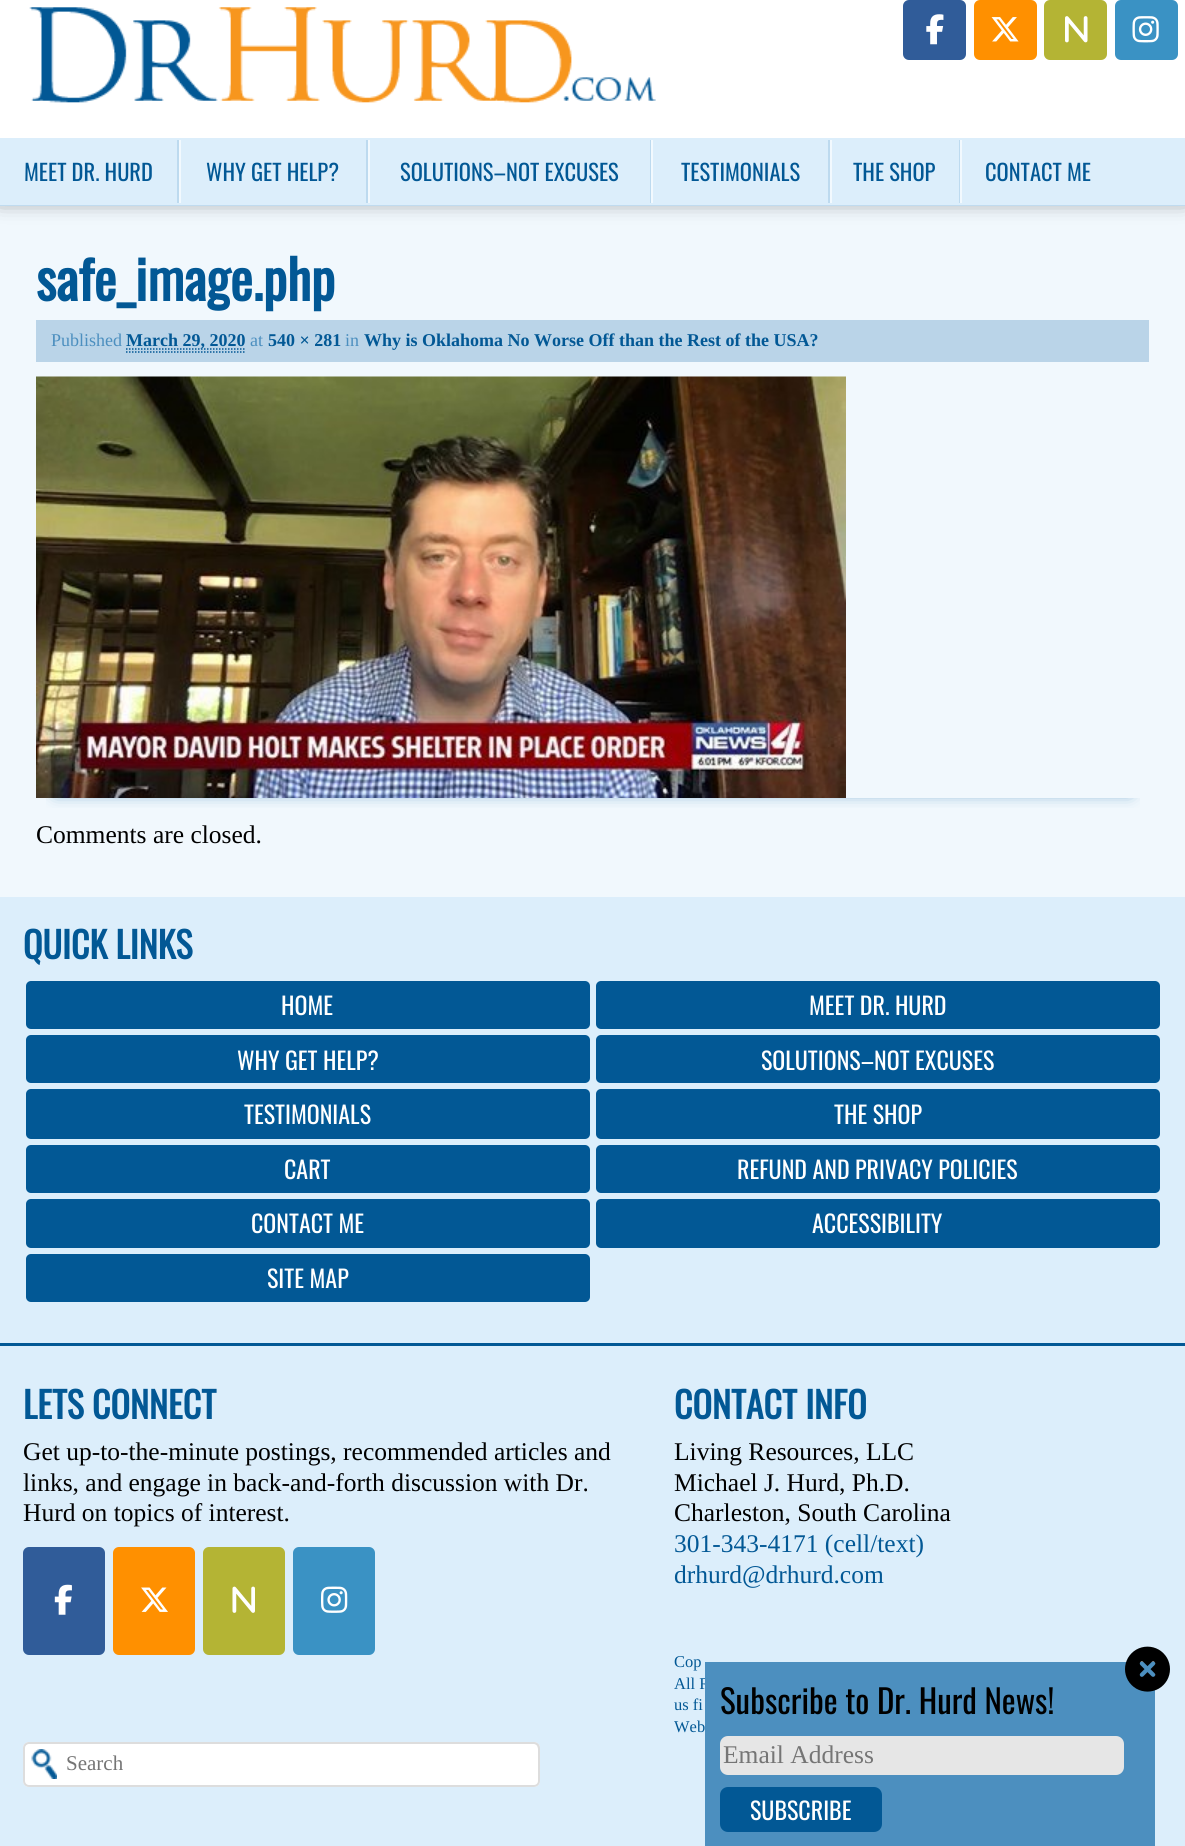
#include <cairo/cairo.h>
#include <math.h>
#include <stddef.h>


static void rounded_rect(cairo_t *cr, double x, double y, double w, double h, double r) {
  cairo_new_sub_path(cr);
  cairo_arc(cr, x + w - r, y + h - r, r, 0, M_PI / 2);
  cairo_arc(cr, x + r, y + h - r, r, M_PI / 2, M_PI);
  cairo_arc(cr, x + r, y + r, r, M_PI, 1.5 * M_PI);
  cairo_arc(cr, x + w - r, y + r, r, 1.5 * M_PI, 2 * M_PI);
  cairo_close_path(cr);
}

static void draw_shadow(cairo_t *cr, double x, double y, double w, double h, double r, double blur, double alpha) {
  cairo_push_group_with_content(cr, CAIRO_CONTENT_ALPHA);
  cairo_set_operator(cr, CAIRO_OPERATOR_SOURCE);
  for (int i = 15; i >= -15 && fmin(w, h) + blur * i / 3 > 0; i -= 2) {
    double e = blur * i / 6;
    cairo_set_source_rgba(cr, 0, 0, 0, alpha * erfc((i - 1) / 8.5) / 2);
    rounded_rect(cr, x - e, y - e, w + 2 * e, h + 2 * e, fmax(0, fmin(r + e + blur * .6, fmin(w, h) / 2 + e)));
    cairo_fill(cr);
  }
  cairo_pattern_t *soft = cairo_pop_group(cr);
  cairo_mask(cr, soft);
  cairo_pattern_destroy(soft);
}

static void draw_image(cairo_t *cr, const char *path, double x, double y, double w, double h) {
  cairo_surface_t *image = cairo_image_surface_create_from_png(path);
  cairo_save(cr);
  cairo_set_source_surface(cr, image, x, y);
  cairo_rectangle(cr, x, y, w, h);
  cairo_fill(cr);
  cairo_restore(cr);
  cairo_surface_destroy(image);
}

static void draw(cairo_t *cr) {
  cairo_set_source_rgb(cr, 241 / 255.0, 248 / 255.0, 253 / 255.0);
  cairo_paint(cr);
  cairo_set_source_rgb(cr, 0, 0, 0);
  draw_shadow(cr, 0, -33, 1185, 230, 0, 11, 0.7);
  cairo_set_source_rgb(cr, 1, 1, 1);
  cairo_rectangle(cr, 0, 0, 1185, 138);
  cairo_fill(cr);
  cairo_set_source_rgb(cr, 192 / 255.0, 219 / 255.0, 239 / 255.0);
  cairo_rectangle(cr, 0, 205, 1185, 1);
  cairo_fill(cr);
  draw_image(cr, "images/1.png", 29, 7, 627, 96);
  cairo_set_source_rgb(cr, 48 / 255.0, 92 / 255.0, 153 / 255.0);
  rounded_rect(cr, 903, 0, 63, 60, 6);
  cairo_fill(cr);
  draw_image(cr, "images/2.png", 926, 14, 18, 31);
  cairo_set_source_rgb(cr, 1, 144 / 255.0, 0);
  rounded_rect(cr, 974, 0, 63, 60, 6);
  cairo_fill(cr);
  draw_image(cr, "images/3.png", 991, 17, 28, 25);
  cairo_set_source_rgb(cr, 180 / 255.0, 180 / 255.0, 52 / 255.0);
  rounded_rect(cr, 1044, 0, 63, 60, 6);
  cairo_fill(cr);
  draw_image(cr, "images/4.png", 1065, 16, 23, 27);
  cairo_set_source_rgb(cr, 58 / 255.0, 146 / 255.0, 196 / 255.0);
  rounded_rect(cr, 1115, 0, 63, 60, 6);
  cairo_fill(cr);
  draw_image(cr, "images/5.png", 1132, 16, 27, 27);
  cairo_set_source_rgb(cr, 220 / 255.0, 238 / 255.0, 251 / 255.0);
  cairo_rectangle(cr, 0, 138, 1185, 67);
  cairo_fill(cr);
  cairo_set_source_rgb(cr, 189 / 255.0, 218 / 255.0, 239 / 255.0);
  cairo_rectangle(cr, 177, 140, 2, 63);
  cairo_fill(cr);
  cairo_rectangle(cr, 366, 140, 2, 63);
  cairo_fill(cr);
  cairo_set_source_rgb(cr, 242 / 255.0, 249 / 255.0, 254 / 255.0);
  cairo_rectangle(cr, 179, 140, 2, 63);
  cairo_fill(cr);
  cairo_set_source_rgb(cr, 189 / 255.0, 218 / 255.0, 239 / 255.0);
  cairo_rectangle(cr, 650, 140, 1, 63);
  cairo_fill(cr);
  cairo_set_source_rgb(cr, 242 / 255.0, 249 / 255.0, 254 / 255.0);
  cairo_rectangle(cr, 368, 140, 2, 63);
  cairo_fill(cr);
  cairo_set_source_rgb(cr, 189 / 255.0, 218 / 255.0, 239 / 255.0);
  cairo_rectangle(cr, 828, 140, 2, 63);
  cairo_fill(cr);
  cairo_set_source_rgb(cr, 242 / 255.0, 249 / 255.0, 254 / 255.0);
  cairo_rectangle(cr, 651, 140, 2, 63);
  cairo_fill(cr);
  cairo_set_source_rgb(cr, 189 / 255.0, 218 / 255.0, 239 / 255.0);
  cairo_rectangle(cr, 959, 140, 1, 63);
  cairo_fill(cr);
  cairo_set_source_rgb(cr, 242 / 255.0, 249 / 255.0, 254 / 255.0);
  cairo_rectangle(cr, 830, 140, 2, 63);
  cairo_fill(cr);
  cairo_rectangle(cr, 960, 140, 2, 63);
  cairo_fill(cr);
  cairo_save(cr);
  cairo_rectangle(cr, 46, 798, 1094, 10);
  cairo_clip(cr);
  cairo_set_source_rgb(cr, 76 / 255.0, 143 / 255.0, 191 / 255.0);
  draw_shadow(cr, 56, 239, 1074, 553, 0, 8, 1);
  cairo_restore(cr);
  cairo_set_source_rgb(cr, 186 / 255.0, 212 / 255.0, 232 / 255.0);
  cairo_rectangle(cr, 36, 320, 1113, 42);
  cairo_fill(cr);
  cairo_new_path(cr);
  cairo_move_to(cr, 126, 352);
  cairo_line_to(cr, 246, 352);
  cairo_set_source_rgb(cr, 2 / 255.0, 88 / 255.0, 149 / 255.0);
  cairo_set_line_width(cr, 1.5);
  cairo_set_dash(cr, (double[]){1.5, 1.5}, 2, 0);
  cairo_stroke(cr);
  cairo_new_path(cr);
  cairo_move_to(cr, 126, 349);
  cairo_line_to(cr, 245.5, 349);
  cairo_stroke(cr);
  draw_image(cr, "images/6.png", 36, 376, 810, 422);
  cairo_set_source_rgb(cr, 220 / 255.0, 238 / 255.0, 251 / 255.0);
  cairo_rectangle(cr, 0, 897, 1185, 949);
  cairo_fill(cr);
  cairo_set_source_rgb(cr, 2 / 255.0, 88 / 255.0, 149 / 255.0);
  cairo_rectangle(cr, 0, 1343, 1185, 3);
  cairo_fill(cr);
  rounded_rect(cr, 24.5, 979.5, 567, 51, 6.5);
  cairo_fill_preserve(cr);
  cairo_set_source_rgb(cr, 220 / 255.0, 238 / 255.0, 251 / 255.0);
  cairo_set_line_width(cr, 3);
  cairo_set_dash(cr, NULL, 0, 0);
  cairo_stroke(cr);
  cairo_set_source_rgb(cr, 2 / 255.0, 88 / 255.0, 149 / 255.0);
  rounded_rect(cr, 594.5, 979.5, 567, 51, 6.5);
  cairo_fill_preserve(cr);
  cairo_set_source_rgb(cr, 220 / 255.0, 238 / 255.0, 251 / 255.0);
  cairo_stroke(cr);
  cairo_set_source_rgb(cr, 2 / 255.0, 88 / 255.0, 149 / 255.0);
  rounded_rect(cr, 24.5, 1033.5, 567, 51, 6.5);
  cairo_fill_preserve(cr);
  cairo_set_source_rgb(cr, 220 / 255.0, 238 / 255.0, 251 / 255.0);
  cairo_stroke(cr);
  cairo_set_source_rgb(cr, 2 / 255.0, 88 / 255.0, 149 / 255.0);
  rounded_rect(cr, 594.5, 1033.5, 567, 51, 6.5);
  cairo_fill_preserve(cr);
  cairo_set_source_rgb(cr, 220 / 255.0, 238 / 255.0, 251 / 255.0);
  cairo_stroke(cr);
  cairo_set_source_rgb(cr, 2 / 255.0, 88 / 255.0, 149 / 255.0);
  rounded_rect(cr, 24.5, 1087.5, 567, 53, 6.5);
  cairo_fill_preserve(cr);
  cairo_set_source_rgb(cr, 220 / 255.0, 238 / 255.0, 251 / 255.0);
  cairo_stroke(cr);
  cairo_set_source_rgb(cr, 2 / 255.0, 88 / 255.0, 149 / 255.0);
  rounded_rect(cr, 594.5, 1087.5, 567, 53, 6.5);
  cairo_fill_preserve(cr);
  cairo_set_source_rgb(cr, 220 / 255.0, 238 / 255.0, 251 / 255.0);
  cairo_stroke(cr);
  cairo_set_source_rgb(cr, 2 / 255.0, 88 / 255.0, 149 / 255.0);
  rounded_rect(cr, 24.5, 1143.5, 567, 51, 6.5);
  cairo_fill_preserve(cr);
  cairo_set_source_rgb(cr, 220 / 255.0, 238 / 255.0, 251 / 255.0);
  cairo_stroke(cr);
  cairo_set_source_rgb(cr, 2 / 255.0, 88 / 255.0, 149 / 255.0);
  rounded_rect(cr, 594.5, 1143.5, 567, 51, 6.5);
  cairo_fill_preserve(cr);
  cairo_set_source_rgb(cr, 220 / 255.0, 238 / 255.0, 251 / 255.0);
  cairo_stroke(cr);
  cairo_set_source_rgb(cr, 2 / 255.0, 88 / 255.0, 149 / 255.0);
  rounded_rect(cr, 24.5, 1197.5, 567, 52, 6.5);
  cairo_fill_preserve(cr);
  cairo_set_source_rgb(cr, 220 / 255.0, 238 / 255.0, 251 / 255.0);
  cairo_stroke(cr);
  cairo_set_source_rgb(cr, 2 / 255.0, 88 / 255.0, 149 / 255.0);
  rounded_rect(cr, 594.5, 1197.5, 567, 52, 6.5);
  cairo_fill_preserve(cr);
  cairo_set_source_rgb(cr, 220 / 255.0, 238 / 255.0, 251 / 255.0);
  cairo_stroke(cr);
  cairo_set_source_rgb(cr, 2 / 255.0, 88 / 255.0, 149 / 255.0);
  rounded_rect(cr, 24.5, 1252.5, 567, 51, 6.5);
  cairo_fill_preserve(cr);
  cairo_set_source_rgb(cr, 220 / 255.0, 238 / 255.0, 251 / 255.0);
  cairo_stroke(cr);
  cairo_set_source_rgb(cr, 48 / 255.0, 92 / 255.0, 153 / 255.0);
  rounded_rect(cr, 23, 1547, 82, 108, 6);
  cairo_fill(cr);
  draw_image(cr, "images/7.png", 54, 1584, 18, 31);
  cairo_set_source_rgb(cr, 1, 144 / 255.0, 0);
  rounded_rect(cr, 113, 1547, 82, 108, 6);
  cairo_fill(cr);
  draw_image(cr, "images/8.png", 141, 1587, 27, 25);
  cairo_set_source_rgb(cr, 180 / 255.0, 180 / 255.0, 52 / 255.0);
  rounded_rect(cr, 203, 1547, 82, 108, 6);
  cairo_fill(cr);
  draw_image(cr, "images/9.png", 232, 1586, 23, 27);
  cairo_set_source_rgb(cr, 58 / 255.0, 146 / 255.0, 196 / 255.0);
  rounded_rect(cr, 293, 1547, 82, 108, 6);
  cairo_fill(cr);
  draw_image(cr, "images/10.png", 321, 1586, 27, 27);
  cairo_set_source_rgb(cr, 1, 1, 1);
  rounded_rect(cr, 23, 1742, 517, 45, 6);
  cairo_fill(cr);
  draw_image(cr, "images/11.png", 31, 1749, 26, 30);
  cairo_set_source_rgb(cr, 230 / 255.0, 230 / 255.0, 230 / 255.0);
  cairo_new_path(cr);
  cairo_move_to(cr, 28, 1744);
  cairo_line_to(cr, 534, 1744);
  cairo_curve_to(cr, 540, 1744, 538, 1758, 538, 1760);
  cairo_line_to(cr, 538, 1783);
  cairo_curve_to(cr, 539, 1782, 539, 1781, 539, 1780);
  cairo_line_to(cr, 539, 1748);
  cairo_curve_to(cr, 539, 1745, 537, 1743, 534, 1743);
  cairo_line_to(cr, 29, 1743);
  cairo_curve_to(cr, 26, 1743, 24, 1745, 24, 1748);
  cairo_line_to(cr, 24, 1749);
  cairo_curve_to(cr, 24, 1747, 26, 1744, 28, 1744);
  cairo_close_path(cr);
  cairo_fill(cr);
  rounded_rect(cr, 24, 1743, 515, 43, 5);
  cairo_set_source_rgb(cr, 221 / 255.0, 221 / 255.0, 221 / 255.0);
  cairo_set_line_width(cr, 2);
  cairo_stroke(cr);
  cairo_select_font_face(cr, "Oswald", CAIRO_FONT_SLANT_NORMAL, CAIRO_FONT_WEIGHT_NORMAL);
  cairo_set_font_size(cr, 22.5);
  cairo_set_source_rgb(cr, 2 / 255.0, 88 / 255.0, 149 / 255.0);
  cairo_move_to(cr, 24, 181);
  cairo_show_text(cr, "MEET DR. HURD");
  cairo_move_to(cr, 206, 181);
  cairo_show_text(cr, "WHY GET HELP?");
  cairo_move_to(cr, 400, 181);
  cairo_show_text(cr, "SOLUTIONS–NOT EXCUSES");
  cairo_move_to(cr, 681, 181);
  cairo_show_text(cr, "TESTIMONIALS");
  cairo_move_to(cr, 853, 181);
  cairo_show_text(cr, "THE SHOP");
  cairo_move_to(cr, 985, 181);
  cairo_show_text(cr, "CONTACT ME");
  cairo_select_font_face(cr, "Oswald", CAIRO_FONT_SLANT_NORMAL, CAIRO_FONT_WEIGHT_BOLD);
  cairo_set_font_size(cr, 54);
  cairo_move_to(cr, 36, 301);
  cairo_show_text(cr, "safe_image.php");
  cairo_select_font_face(cr, "Liberation Serif", CAIRO_FONT_SLANT_NORMAL, CAIRO_FONT_WEIGHT_NORMAL);
  cairo_set_font_size(cr, 18);
  cairo_set_source_rgb(cr, 76 / 255.0, 143 / 255.0, 191 / 255.0);
  cairo_move_to(cr, 51, 346);
  cairo_show_text(cr, "Published");
  cairo_select_font_face(cr, "Liberation Serif", CAIRO_FONT_SLANT_NORMAL, CAIRO_FONT_WEIGHT_BOLD);
  cairo_set_source_rgb(cr, 2 / 255.0, 88 / 255.0, 149 / 255.0);
  cairo_move_to(cr, 126, 346);
  cairo_show_text(cr, "March 29, 2020");
  cairo_select_font_face(cr, "Liberation Serif", CAIRO_FONT_SLANT_NORMAL, CAIRO_FONT_WEIGHT_NORMAL);
  cairo_set_source_rgb(cr, 76 / 255.0, 143 / 255.0, 191 / 255.0);
  cairo_move_to(cr, 250, 346);
  cairo_show_text(cr, "at");
  cairo_select_font_face(cr, "Liberation Serif", CAIRO_FONT_SLANT_NORMAL, CAIRO_FONT_WEIGHT_BOLD);
  cairo_set_source_rgb(cr, 2 / 255.0, 88 / 255.0, 149 / 255.0);
  cairo_move_to(cr, 268, 346);
  cairo_show_text(cr, "540 × 281");
  cairo_select_font_face(cr, "Liberation Serif", CAIRO_FONT_SLANT_NORMAL, CAIRO_FONT_WEIGHT_NORMAL);
  cairo_set_source_rgb(cr, 76 / 255.0, 143 / 255.0, 191 / 255.0);
  cairo_move_to(cr, 345, 346);
  cairo_show_text(cr, "in");
  cairo_select_font_face(cr, "Liberation Serif", CAIRO_FONT_SLANT_NORMAL, CAIRO_FONT_WEIGHT_BOLD);
  cairo_set_source_rgb(cr, 2 / 255.0, 88 / 255.0, 149 / 255.0);
  cairo_move_to(cr, 364, 346);
  cairo_show_text(cr, "Why is Oklahoma No Worse Off than the Rest of the USA?");
  cairo_select_font_face(cr, "Liberation Serif", CAIRO_FONT_SLANT_NORMAL, CAIRO_FONT_WEIGHT_NORMAL);
  cairo_set_font_size(cr, 25.5);
  cairo_set_source_rgb(cr, 0, 0, 0);
  cairo_move_to(cr, 36, 843);
  cairo_show_text(cr, "Comments are closed.");
  cairo_select_font_face(cr, "Oswald", CAIRO_FONT_SLANT_NORMAL, CAIRO_FONT_WEIGHT_BOLD);
  cairo_set_font_size(cr, 36);
  cairo_set_source_rgb(cr, 2 / 255.0, 88 / 255.0, 149 / 255.0);
  cairo_move_to(cr, 23, 959);
  cairo_show_text(cr, "QUICK LINKS");
  cairo_select_font_face(cr, "Oswald", CAIRO_FONT_SLANT_NORMAL, CAIRO_FONT_WEIGHT_NORMAL);
  cairo_set_font_size(cr, 24);
  cairo_set_source_rgb(cr, 1, 1, 1);
  cairo_move_to(cr, 281, 1015);
  cairo_show_text(cr, "HOME");
  cairo_move_to(cr, 809, 1015);
  cairo_show_text(cr, "MEET DR. HURD");
  cairo_move_to(cr, 237, 1070);
  cairo_show_text(cr, "WHY GET HELP?");
  cairo_move_to(cr, 761, 1070);
  cairo_show_text(cr, "SOLUTIONS–NOT EXCUSES");
  cairo_move_to(cr, 244, 1124);
  cairo_show_text(cr, "TESTIMONIALS");
  cairo_move_to(cr, 834, 1124);
  cairo_show_text(cr, "THE SHOP");
  cairo_move_to(cr, 284, 1179);
  cairo_show_text(cr, "CART");
  cairo_move_to(cr, 737, 1179);
  cairo_show_text(cr, "REFUND AND PRIVACY POLICIES");
  cairo_move_to(cr, 251, 1233);
  cairo_show_text(cr, "CONTACT ME");
  cairo_move_to(cr, 812, 1233);
  cairo_show_text(cr, "ACCESSIBILITY");
  cairo_move_to(cr, 267, 1288);
  cairo_show_text(cr, "SITE MAP");
  cairo_select_font_face(cr, "Oswald", CAIRO_FONT_SLANT_NORMAL, CAIRO_FONT_WEIGHT_BOLD);
  cairo_set_font_size(cr, 36);
  cairo_set_source_rgb(cr, 2 / 255.0, 88 / 255.0, 149 / 255.0);
  cairo_move_to(cr, 23, 1419);
  cairo_show_text(cr, "LETS CONNECT");
  cairo_select_font_face(cr, "Liberation Serif", CAIRO_FONT_SLANT_NORMAL, CAIRO_FONT_WEIGHT_NORMAL);
  cairo_set_font_size(cr, 25.5);
  cairo_set_source_rgb(cr, 0, 0, 0);
  cairo_move_to(cr, 23, 1460);
  cairo_show_text(cr, "Get up-to-the-minute postings, recommended articles and");
  cairo_move_to(cr, 23, 1491);
  cairo_show_text(cr, "links, and engage in back-and-forth discussion with Dr.");
  cairo_move_to(cr, 23, 1521);
  cairo_show_text(cr, "Hurd on topics of interest.");
  cairo_set_font_size(cr, 21);
  cairo_set_source_rgb(cr, 117 / 255.0, 117 / 255.0, 117 / 255.0);
  cairo_move_to(cr, 66, 1770);
  cairo_show_text(cr, "Search");
  cairo_select_font_face(cr, "Oswald", CAIRO_FONT_SLANT_NORMAL, CAIRO_FONT_WEIGHT_BOLD);
  cairo_set_font_size(cr, 36);
  cairo_set_source_rgb(cr, 2 / 255.0, 88 / 255.0, 149 / 255.0);
  cairo_move_to(cr, 674, 1419);
  cairo_show_text(cr, "CONTACT INFO");
  cairo_select_font_face(cr, "Liberation Serif", CAIRO_FONT_SLANT_NORMAL, CAIRO_FONT_WEIGHT_NORMAL);
  cairo_set_font_size(cr, 25.5);
  cairo_set_source_rgb(cr, 0, 0, 0);
  cairo_move_to(cr, 674, 1460);
  cairo_show_text(cr, "Living Resources, LLC");
  cairo_move_to(cr, 674, 1491);
  cairo_show_text(cr, "Michael J. Hurd, Ph.D.");
  cairo_move_to(cr, 674, 1521);
  cairo_show_text(cr, "Charleston, South Carolina");
  cairo_set_source_rgb(cr, 2 / 255.0, 88 / 255.0, 149 / 255.0);
  cairo_move_to(cr, 674, 1552);
  cairo_show_text(cr, "301-343-4171 (cell/text)");
  cairo_move_to(cr, 674, 1583);
  cairo_show_text(cr, "drhurd@drhurd.com");
  cairo_set_font_size(cr, 16.5);
  cairo_move_to(cr, 674, 1667);
  cairo_show_text(cr, "Cop");
  cairo_move_to(cr, 674, 1689);
  cairo_show_text(cr, "All R");
  cairo_move_to(cr, 674, 1710);
  cairo_show_text(cr, "us fi");
  cairo_move_to(cr, 674, 1732);
  cairo_show_text(cr, "Web");
  cairo_set_source_rgb(cr, 76 / 255.0, 143 / 255.0, 191 / 255.0);
  cairo_rectangle(cr, 705, 1662, 450, 184);
  cairo_fill(cr);
  draw_image(cr, "images/12.png", 1125, 1646, 45, 46);
  cairo_select_font_face(cr, "Oswald", CAIRO_FONT_SLANT_NORMAL, CAIRO_FONT_WEIGHT_NORMAL);
  cairo_set_font_size(cr, 33);
  cairo_set_source_rgb(cr, 0, 0, 0);
  cairo_move_to(cr, 720, 1714);
  cairo_show_text(cr, "Subscribe to Dr. Hurd News!");
  cairo_set_source_rgb(cr, 230 / 255.0, 230 / 255.0, 230 / 255.0);
  rounded_rect(cr, 720, 1736, 404, 39, 8);
  cairo_fill(cr);
  cairo_select_font_face(cr, "Liberation Serif", CAIRO_FONT_SLANT_NORMAL, CAIRO_FONT_WEIGHT_NORMAL);
  cairo_set_font_size(cr, 25.5);
  cairo_set_source_rgb(cr, 117 / 255.0, 117 / 255.0, 117 / 255.0);
  cairo_move_to(cr, 723, 1763);
  cairo_show_text(cr, "Email Address");
  cairo_set_source_rgb(cr, 2 / 255.0, 88 / 255.0, 149 / 255.0);
  rounded_rect(cr, 720, 1787, 162, 45, 8);
  cairo_fill(cr);
  cairo_select_font_face(cr, "Oswald", CAIRO_FONT_SLANT_NORMAL, CAIRO_FONT_WEIGHT_NORMAL);
  cairo_set_font_size(cr, 24);
  cairo_set_source_rgb(cr, 1, 1, 1);
  cairo_move_to(cr, 750, 1820);
  cairo_show_text(cr, "SUBSCRIBE");
}

int main(void) {
  cairo_surface_t *surface = cairo_image_surface_create(CAIRO_FORMAT_RGB24, 1185, 1846);
  cairo_t *cr = cairo_create(surface);
  cairo_font_options_t *options = cairo_font_options_create();
  cairo_font_options_set_hint_metrics(options, CAIRO_HINT_METRICS_OFF);
  cairo_font_options_set_hint_style(options, CAIRO_HINT_STYLE_NONE);
  cairo_set_font_options(cr, options);
  cairo_set_miter_limit(cr, 4);
  draw(cr);
  cairo_surface_write_to_png(surface, "out.png");
  cairo_font_options_destroy(options);
  cairo_destroy(cr);
  cairo_surface_destroy(surface);
  return 0;
}
